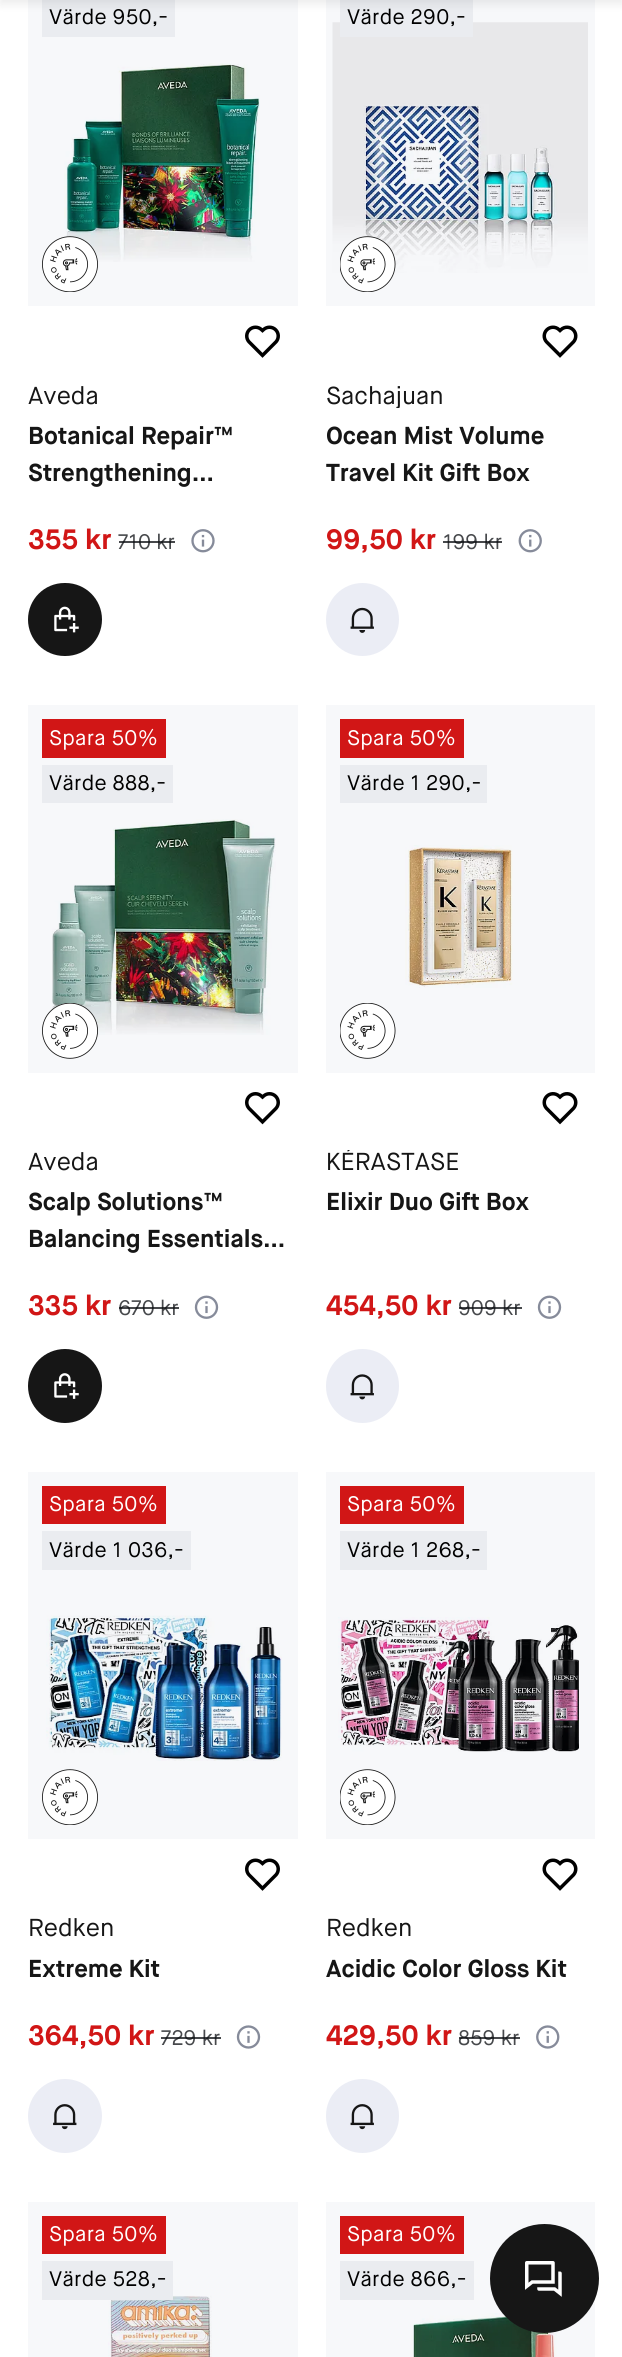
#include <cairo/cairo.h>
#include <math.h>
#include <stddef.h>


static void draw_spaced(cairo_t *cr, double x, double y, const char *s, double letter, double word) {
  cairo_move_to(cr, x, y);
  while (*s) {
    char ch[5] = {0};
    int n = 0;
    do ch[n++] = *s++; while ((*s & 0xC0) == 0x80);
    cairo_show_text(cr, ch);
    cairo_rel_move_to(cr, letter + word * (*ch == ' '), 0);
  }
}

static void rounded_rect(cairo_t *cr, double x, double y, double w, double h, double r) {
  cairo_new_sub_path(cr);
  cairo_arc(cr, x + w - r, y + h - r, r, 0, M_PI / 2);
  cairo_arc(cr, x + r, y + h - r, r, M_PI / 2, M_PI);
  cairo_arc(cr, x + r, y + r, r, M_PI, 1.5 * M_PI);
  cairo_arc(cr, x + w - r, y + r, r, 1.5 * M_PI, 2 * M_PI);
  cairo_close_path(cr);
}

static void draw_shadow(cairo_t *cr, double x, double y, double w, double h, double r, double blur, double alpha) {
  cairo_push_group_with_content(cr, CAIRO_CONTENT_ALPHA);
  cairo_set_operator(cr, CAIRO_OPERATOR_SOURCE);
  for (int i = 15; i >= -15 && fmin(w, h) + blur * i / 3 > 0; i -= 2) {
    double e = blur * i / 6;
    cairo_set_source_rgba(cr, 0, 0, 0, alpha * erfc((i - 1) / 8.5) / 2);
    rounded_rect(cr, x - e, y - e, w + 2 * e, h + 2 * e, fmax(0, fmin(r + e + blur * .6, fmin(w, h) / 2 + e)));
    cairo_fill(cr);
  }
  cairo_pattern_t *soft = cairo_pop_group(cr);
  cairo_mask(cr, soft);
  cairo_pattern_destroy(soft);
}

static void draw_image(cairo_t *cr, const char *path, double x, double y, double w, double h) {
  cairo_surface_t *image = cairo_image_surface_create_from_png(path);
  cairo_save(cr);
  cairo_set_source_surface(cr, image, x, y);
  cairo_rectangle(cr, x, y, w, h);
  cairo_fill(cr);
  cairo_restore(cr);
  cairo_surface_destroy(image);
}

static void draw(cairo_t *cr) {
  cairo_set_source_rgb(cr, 1, 1, 1);
  cairo_paint(cr);
  cairo_set_source_rgb(cr, 247 / 255.0, 248 / 255.0, 250 / 255.0);
  cairo_rectangle(cr, 326, 2202, 269, 155);
  cairo_fill(cr);
  cairo_rectangle(cr, 28, 2202, 270, 155);
  cairo_fill(cr);
  cairo_rectangle(cr, 326, 1472, 269, 367);
  cairo_fill(cr);
  cairo_rectangle(cr, 28, 1472, 270, 367);
  cairo_fill(cr);
  cairo_rectangle(cr, 326, 705, 269, 368);
  cairo_fill(cr);
  cairo_rectangle(cr, 28, 705, 270, 368);
  cairo_fill(cr);
  cairo_rectangle(cr, 326, 0, 269, 306);
  cairo_fill(cr);
  cairo_rectangle(cr, 28, 0, 270, 306);
  cairo_fill(cr);
  cairo_set_source_rgb(cr, 234 / 255.0, 236 / 255.0, 240 / 255.0);
  cairo_rectangle(cr, 42, 0, 133, 37);
  cairo_fill(cr);
  draw_image(cr, "images/7.png", 332, 22, 256, 251);
  cairo_rectangle(cr, 340, 0, 133, 37);
  cairo_fill(cr);
  cairo_set_source_rgb(cr, 0, 0, 0);
  draw_shadow(cr, 0, -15, 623, 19, 0, 5, 0.08);
  draw_image(cr, "images/2.png", 64, 63, 196, 199);
  draw_image(cr, "images/1.png", 42, 236, 56, 56);
  draw_image(cr, "images/3.png", 245, 325, 35, 33);
  draw_image(cr, "images/4.png", 191, 529, 24, 24);
  cairo_set_source_rgb(cr, 22 / 255.0, 22 / 255.0, 22 / 255.0);
  rounded_rect(cr, 28, 583, 74, 73, 36.5);
  cairo_fill(cr);
  draw_image(cr, "images/5.png", 54, 606, 25, 27);
  draw_image(cr, "images/6.png", 340, 236, 56, 56);
  draw_image(cr, "images/8.png", 542, 325, 36, 33);
  draw_image(cr, "images/9.png", 518, 529, 24, 24);
  cairo_set_source_rgb(cr, 235 / 255.0, 237 / 255.0, 245 / 255.0);
  cairo_arc(cr, 362.5, 619.5, 36.5, 0, 2 * M_PI);
  cairo_fill(cr);
  draw_image(cr, "images/10.png", 350, 607, 24, 26);
  cairo_set_source_rgb(cr, 209 / 255.0, 22 / 255.0, 22 / 255.0);
  cairo_rectangle(cr, 42, 719, 124, 39);
  cairo_fill(cr);
  cairo_set_source_rgb(cr, 234 / 255.0, 236 / 255.0, 240 / 255.0);
  cairo_rectangle(cr, 42, 765, 131, 38);
  cairo_fill(cr);
  draw_image(cr, "images/12.png", 52, 819, 224, 216);
  draw_image(cr, "images/11.png", 42, 1003, 56, 56);
  draw_image(cr, "images/13.png", 245, 1092, 35, 33);
  draw_image(cr, "images/14.png", 194, 1295, 25, 24);
  cairo_set_source_rgb(cr, 22 / 255.0, 22 / 255.0, 22 / 255.0);
  cairo_arc(cr, 65, 1386, 37, 0, 2 * M_PI);
  cairo_fill(cr);
  draw_image(cr, "images/15.png", 54, 1373, 25, 26);
  cairo_set_source_rgb(cr, 209 / 255.0, 22 / 255.0, 22 / 255.0);
  cairo_rectangle(cr, 340, 719, 124, 39);
  cairo_fill(cr);
  cairo_set_source_rgb(cr, 234 / 255.0, 236 / 255.0, 240 / 255.0);
  cairo_rectangle(cr, 340, 765, 147, 38);
  cairo_fill(cr);
  draw_image(cr, "images/16.png", 340, 1003, 56, 56);
  draw_image(cr, "images/17.png", 405, 845, 108, 143);
  draw_image(cr, "images/18.png", 542, 1092, 36, 33);
  draw_image(cr, "images/14.png", 537, 1295, 25, 24);
  cairo_set_source_rgb(cr, 235 / 255.0, 237 / 255.0, 245 / 255.0);
  rounded_rect(cr, 326, 1349, 73, 74, 36.5);
  cairo_fill(cr);
  draw_image(cr, "images/19.png", 350, 1374, 24, 26);
  cairo_set_source_rgb(cr, 209 / 255.0, 22 / 255.0, 22 / 255.0);
  cairo_rectangle(cr, 42, 1486, 124, 38);
  cairo_fill(cr);
  cairo_set_source_rgb(cr, 234 / 255.0, 236 / 255.0, 240 / 255.0);
  cairo_rectangle(cr, 42, 1531, 149, 39);
  cairo_fill(cr);
  draw_image(cr, "images/20.png", 42, 1769, 56, 56);
  draw_image(cr, "images/21.png", 46, 1615, 236, 146);
  draw_image(cr, "images/3.png", 245, 1858, 35, 33);
  draw_image(cr, "images/22.png", 236, 2025, 25, 24);
  cairo_set_source_rgb(cr, 235 / 255.0, 237 / 255.0, 245 / 255.0);
  cairo_arc(cr, 65, 2116, 37, 0, 2 * M_PI);
  cairo_fill(cr);
  draw_image(cr, "images/23.png", 53, 2104, 24, 26);
  cairo_set_source_rgb(cr, 209 / 255.0, 22 / 255.0, 22 / 255.0);
  cairo_rectangle(cr, 340, 1486, 124, 38);
  cairo_fill(cr);
  cairo_set_source_rgb(cr, 234 / 255.0, 236 / 255.0, 240 / 255.0);
  cairo_rectangle(cr, 340, 1531, 147, 39);
  cairo_fill(cr);
  draw_image(cr, "images/24.png", 340, 1769, 56, 56);
  draw_image(cr, "images/25.png", 338, 1617, 241, 135);
  draw_image(cr, "images/8.png", 542, 1858, 36, 33);
  draw_image(cr, "images/26.png", 536, 2025, 24, 24);
  cairo_set_source_rgb(cr, 235 / 255.0, 237 / 255.0, 245 / 255.0);
  rounded_rect(cr, 326, 2079, 73, 74, 36.5);
  cairo_fill(cr);
  draw_image(cr, "images/27.png", 350, 2104, 24, 26);
  cairo_set_source_rgb(cr, 209 / 255.0, 22 / 255.0, 22 / 255.0);
  cairo_rectangle(cr, 42, 2216, 124, 38);
  cairo_fill(cr);
  draw_image(cr, "images/28.png", 108, 2295, 104, 62);
  cairo_set_source_rgb(cr, 234 / 255.0, 236 / 255.0, 240 / 255.0);
  cairo_rectangle(cr, 42, 2261, 131, 39);
  cairo_fill(cr);
  cairo_set_source_rgb(cr, 209 / 255.0, 22 / 255.0, 22 / 255.0);
  cairo_rectangle(cr, 340, 2216, 124, 38);
  cairo_fill(cr);
  cairo_set_source_rgb(cr, 234 / 255.0, 236 / 255.0, 240 / 255.0);
  cairo_rectangle(cr, 340, 2261, 134, 39);
  cairo_fill(cr);
  draw_image(cr, "images/29.png", 411, 2313, 146, 44);
  cairo_set_source_rgb(cr, 22 / 255.0, 22 / 255.0, 22 / 255.0);
  cairo_arc(cr, 544.5, 2278.5, 54.5, 0, 2 * M_PI);
  cairo_fill(cr);
  draw_image(cr, "images/30.png", 525, 2261, 37, 36);
  cairo_select_font_face(cr, "Maison Neue", CAIRO_FONT_SLANT_NORMAL, CAIRO_FONT_WEIGHT_NORMAL);
  cairo_set_font_size(cr, 21);
  cairo_set_source_rgb(cr, 0, 0, 0);
  draw_spaced(cr, 49, 24, "Värde 950,-", 0.3, 0);
  cairo_set_font_size(cr, 24.5);
  cairo_set_source_rgb(cr, 22 / 255.0, 22 / 255.0, 22 / 255.0);
  cairo_move_to(cr, 28, 404);
  cairo_show_text(cr, "Aveda");
  cairo_select_font_face(cr, "Maison Neue", CAIRO_FONT_SLANT_NORMAL, CAIRO_FONT_WEIGHT_BOLD);
  cairo_move_to(cr, 28, 444);
  cairo_show_text(cr, "Botanical Repair™");
  cairo_move_to(cr, 28, 481);
  cairo_show_text(cr, "Strengthening…");
  cairo_set_font_size(cr, 28);
  cairo_set_source_rgb(cr, 209 / 255.0, 22 / 255.0, 22 / 255.0);
  cairo_move_to(cr, 28, 549);
  cairo_show_text(cr, "355 kr");
  cairo_select_font_face(cr, "Maison Neue", CAIRO_FONT_SLANT_NORMAL, CAIRO_FONT_WEIGHT_NORMAL);
  cairo_set_font_size(cr, 21);
  cairo_set_source_rgb(cr, 71 / 255.0, 73 / 255.0, 76 / 255.0);
  cairo_move_to(cr, 118, 549);
  cairo_show_text(cr, "710 kr");
  cairo_set_source_rgba(cr, 13 / 255.0, 15 / 255.0, 19 / 255.0, 0.76);
  cairo_rectangle(cr, 119, 541, 56, 2);
  cairo_fill(cr);
  cairo_set_source_rgb(cr, 0, 0, 0);
  draw_spaced(cr, 347, 24, "Värde 290,-", 0.3, 0);
  cairo_save(cr);
  cairo_rectangle(cr, 326, 383, 269, 25);
  cairo_clip(cr);
  cairo_set_font_size(cr, 24.5);
  cairo_set_source_rgb(cr, 22 / 255.0, 22 / 255.0, 22 / 255.0);
  cairo_move_to(cr, 326, 404);
  cairo_show_text(cr, "Sachajuan");
  cairo_restore(cr);
  cairo_select_font_face(cr, "Maison Neue", CAIRO_FONT_SLANT_NORMAL, CAIRO_FONT_WEIGHT_BOLD);
  cairo_set_font_size(cr, 24.5);
  cairo_set_source_rgb(cr, 22 / 255.0, 22 / 255.0, 22 / 255.0);
  cairo_move_to(cr, 326, 444);
  cairo_show_text(cr, "Ocean Mist Volume");
  cairo_save(cr);
  cairo_rectangle(cr, 326, 418, 269, 74);
  cairo_clip(cr);
  cairo_move_to(cr, 326, 481);
  cairo_show_text(cr, "Travel Kit Gift Box");
  cairo_restore(cr);
  cairo_set_font_size(cr, 28);
  cairo_set_source_rgb(cr, 209 / 255.0, 22 / 255.0, 22 / 255.0);
  cairo_move_to(cr, 326, 549);
  cairo_show_text(cr, "99,50 kr");
  cairo_select_font_face(cr, "Maison Neue", CAIRO_FONT_SLANT_NORMAL, CAIRO_FONT_WEIGHT_NORMAL);
  cairo_set_font_size(cr, 21);
  cairo_set_source_rgb(cr, 71 / 255.0, 73 / 255.0, 76 / 255.0);
  cairo_move_to(cr, 443, 549);
  cairo_show_text(cr, "199 kr");
  cairo_set_source_rgba(cr, 13 / 255.0, 15 / 255.0, 19 / 255.0, 0.76);
  cairo_rectangle(cr, 443, 541, 59, 2);
  cairo_fill(cr);
  cairo_set_source_rgb(cr, 1, 1, 1);
  draw_spaced(cr, 49, 745, "Spara 50%", 0.3, 0);
  cairo_set_source_rgb(cr, 0, 0, 0);
  draw_spaced(cr, 49, 790, "Värde 888,-", 0.3, 0);
  cairo_set_font_size(cr, 24.5);
  cairo_set_source_rgb(cr, 22 / 255.0, 22 / 255.0, 22 / 255.0);
  cairo_move_to(cr, 28, 1170);
  cairo_show_text(cr, "Aveda");
  cairo_select_font_face(cr, "Maison Neue", CAIRO_FONT_SLANT_NORMAL, CAIRO_FONT_WEIGHT_BOLD);
  cairo_move_to(cr, 28, 1210);
  cairo_show_text(cr, "Scalp Solutions™");
  cairo_move_to(cr, 28, 1247);
  cairo_show_text(cr, "Balancing Essentials…");
  cairo_set_font_size(cr, 28);
  cairo_set_source_rgb(cr, 209 / 255.0, 22 / 255.0, 22 / 255.0);
  cairo_move_to(cr, 28, 1315);
  cairo_show_text(cr, "335 kr");
  cairo_select_font_face(cr, "Maison Neue", CAIRO_FONT_SLANT_NORMAL, CAIRO_FONT_WEIGHT_NORMAL);
  cairo_set_font_size(cr, 21);
  cairo_set_source_rgb(cr, 71 / 255.0, 73 / 255.0, 76 / 255.0);
  cairo_move_to(cr, 118, 1315);
  cairo_show_text(cr, "670 kr");
  cairo_set_source_rgba(cr, 13 / 255.0, 15 / 255.0, 19 / 255.0, 0.76);
  cairo_rectangle(cr, 119, 1307, 60, 2);
  cairo_fill(cr);
  cairo_set_source_rgb(cr, 1, 1, 1);
  draw_spaced(cr, 347, 745, "Spara 50%", 0.3, 0);
  cairo_set_source_rgb(cr, 0, 0, 0);
  draw_spaced(cr, 347, 790, "Värde 1 290,-", 0.3, 0);
  cairo_save(cr);
  cairo_rectangle(cr, 326, 1150, 269, 24);
  cairo_clip(cr);
  cairo_set_font_size(cr, 24.5);
  cairo_set_source_rgb(cr, 22 / 255.0, 22 / 255.0, 22 / 255.0);
  cairo_move_to(cr, 326, 1170);
  cairo_show_text(cr, "KÉRASTASE");
  cairo_restore(cr);
  cairo_select_font_face(cr, "Maison Neue", CAIRO_FONT_SLANT_NORMAL, CAIRO_FONT_WEIGHT_BOLD);
  cairo_set_font_size(cr, 24.5);
  cairo_set_source_rgb(cr, 22 / 255.0, 22 / 255.0, 22 / 255.0);
  cairo_move_to(cr, 326, 1210);
  cairo_show_text(cr, "Elixir Duo Gift Box");
  cairo_set_font_size(cr, 28);
  cairo_set_source_rgb(cr, 209 / 255.0, 22 / 255.0, 22 / 255.0);
  cairo_move_to(cr, 326, 1315);
  cairo_show_text(cr, "454,50 kr");
  cairo_select_font_face(cr, "Maison Neue", CAIRO_FONT_SLANT_NORMAL, CAIRO_FONT_WEIGHT_NORMAL);
  cairo_set_font_size(cr, 21);
  cairo_set_source_rgb(cr, 71 / 255.0, 73 / 255.0, 76 / 255.0);
  cairo_move_to(cr, 458, 1315);
  cairo_show_text(cr, "909 kr");
  cairo_set_source_rgba(cr, 13 / 255.0, 15 / 255.0, 19 / 255.0, 0.76);
  cairo_rectangle(cr, 459, 1307, 63, 2);
  cairo_fill(cr);
  cairo_set_source_rgb(cr, 1, 1, 1);
  draw_spaced(cr, 49, 1511, "Spara 50%", 0.3, 0);
  cairo_set_source_rgb(cr, 0, 0, 0);
  draw_spaced(cr, 49, 1557, "Värde 1 036,-", 0.3, 0);
  cairo_set_font_size(cr, 24.5);
  cairo_set_source_rgb(cr, 22 / 255.0, 22 / 255.0, 22 / 255.0);
  cairo_move_to(cr, 28, 1936);
  cairo_show_text(cr, "Redken");
  cairo_select_font_face(cr, "Maison Neue", CAIRO_FONT_SLANT_NORMAL, CAIRO_FONT_WEIGHT_BOLD);
  cairo_move_to(cr, 28, 1977);
  cairo_show_text(cr, "Extreme Kit");
  cairo_set_font_size(cr, 28);
  cairo_set_source_rgb(cr, 209 / 255.0, 22 / 255.0, 22 / 255.0);
  cairo_move_to(cr, 28, 2045);
  cairo_show_text(cr, "364,50 kr");
  cairo_select_font_face(cr, "Maison Neue", CAIRO_FONT_SLANT_NORMAL, CAIRO_FONT_WEIGHT_NORMAL);
  cairo_set_font_size(cr, 21);
  cairo_set_source_rgb(cr, 71 / 255.0, 73 / 255.0, 76 / 255.0);
  cairo_move_to(cr, 161, 2045);
  cairo_show_text(cr, "729 kr");
  cairo_set_source_rgba(cr, 13 / 255.0, 15 / 255.0, 19 / 255.0, 0.76);
  cairo_rectangle(cr, 161, 2037, 60, 2);
  cairo_fill(cr);
  cairo_set_source_rgb(cr, 1, 1, 1);
  draw_spaced(cr, 347, 1511, "Spara 50%", 0.3, 0);
  cairo_set_source_rgb(cr, 0, 0, 0);
  draw_spaced(cr, 347, 1557, "Värde 1 268,-", 0.3, 0);
  cairo_set_font_size(cr, 24.5);
  cairo_set_source_rgb(cr, 22 / 255.0, 22 / 255.0, 22 / 255.0);
  cairo_move_to(cr, 326, 1936);
  cairo_show_text(cr, "Redken");
  cairo_select_font_face(cr, "Maison Neue", CAIRO_FONT_SLANT_NORMAL, CAIRO_FONT_WEIGHT_BOLD);
  cairo_move_to(cr, 326, 1977);
  cairo_show_text(cr, "Acidic Color Gloss Kit");
  cairo_set_font_size(cr, 28);
  cairo_set_source_rgb(cr, 209 / 255.0, 22 / 255.0, 22 / 255.0);
  cairo_move_to(cr, 326, 2045);
  cairo_show_text(cr, "429,50 kr");
  cairo_select_font_face(cr, "Maison Neue", CAIRO_FONT_SLANT_NORMAL, CAIRO_FONT_WEIGHT_NORMAL);
  cairo_set_font_size(cr, 21);
  cairo_set_source_rgb(cr, 71 / 255.0, 73 / 255.0, 76 / 255.0);
  cairo_move_to(cr, 458, 2045);
  cairo_show_text(cr, "859 kr");
  cairo_set_source_rgba(cr, 13 / 255.0, 15 / 255.0, 19 / 255.0, 0.76);
  cairo_rectangle(cr, 459, 2037, 61, 2);
  cairo_fill(cr);
  cairo_set_source_rgb(cr, 1, 1, 1);
  draw_spaced(cr, 49, 2241, "Spara 50%", 0.3, 0);
  cairo_set_source_rgb(cr, 0, 0, 0);
  draw_spaced(cr, 49, 2286, "Värde 528,-", 0.3, 0);
  cairo_set_source_rgb(cr, 1, 1, 1);
  draw_spaced(cr, 347, 2241, "Spara 50%", 0.3, 0);
  cairo_set_source_rgb(cr, 0, 0, 0);
  draw_spaced(cr, 347, 2286, "Värde 866,-", 0.3, 0);
}

int main(void) {
  cairo_surface_t *surface = cairo_image_surface_create(CAIRO_FORMAT_RGB24, 622, 2357);
  cairo_t *cr = cairo_create(surface);
  cairo_font_options_t *options = cairo_font_options_create();
  cairo_font_options_set_hint_metrics(options, CAIRO_HINT_METRICS_OFF);
  cairo_font_options_set_hint_style(options, CAIRO_HINT_STYLE_NONE);
  cairo_set_font_options(cr, options);
  cairo_set_miter_limit(cr, 4);
  draw(cr);
  cairo_surface_write_to_png(surface, "out.png");
  cairo_font_options_destroy(options);
  cairo_destroy(cr);
  cairo_surface_destroy(surface);
  return 0;
}
